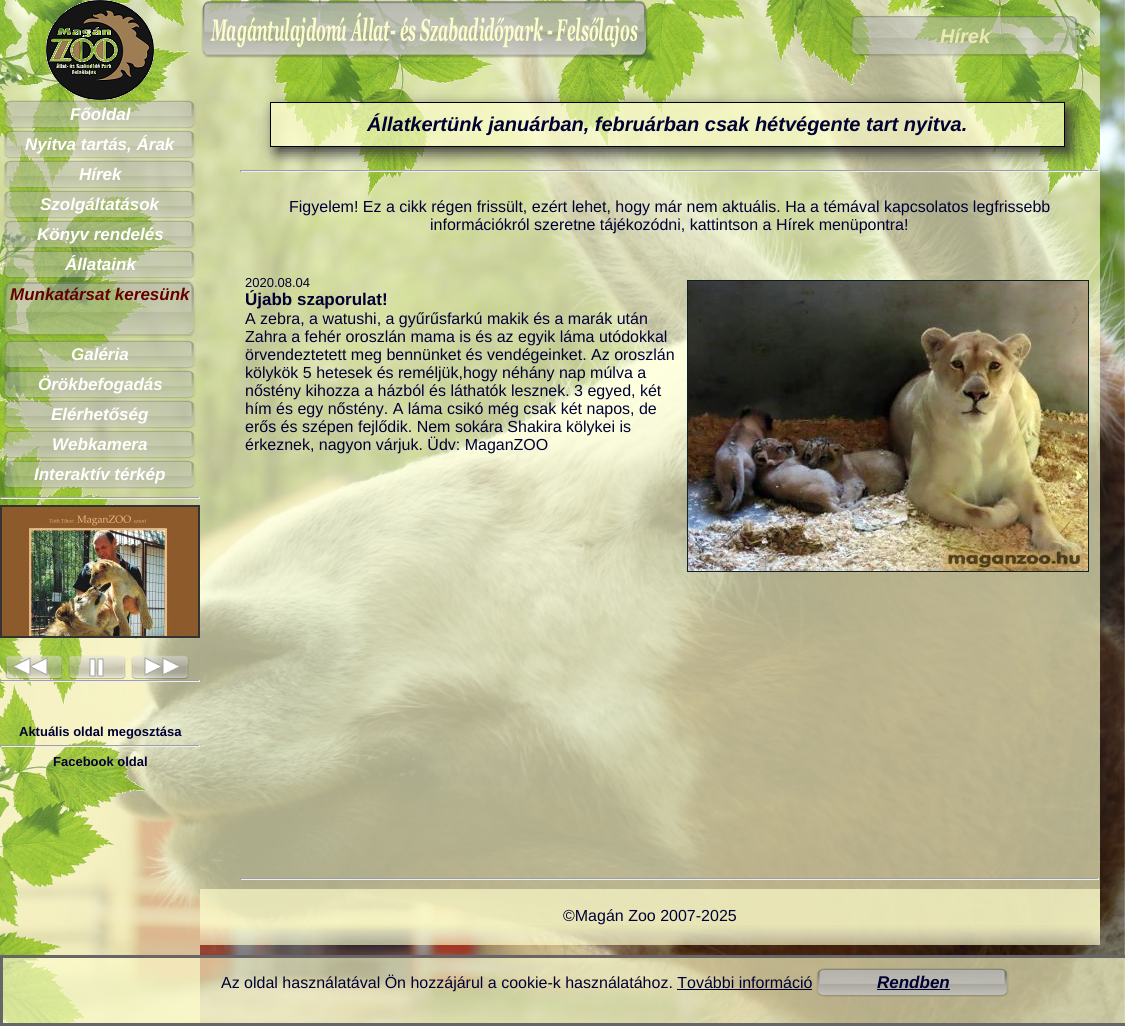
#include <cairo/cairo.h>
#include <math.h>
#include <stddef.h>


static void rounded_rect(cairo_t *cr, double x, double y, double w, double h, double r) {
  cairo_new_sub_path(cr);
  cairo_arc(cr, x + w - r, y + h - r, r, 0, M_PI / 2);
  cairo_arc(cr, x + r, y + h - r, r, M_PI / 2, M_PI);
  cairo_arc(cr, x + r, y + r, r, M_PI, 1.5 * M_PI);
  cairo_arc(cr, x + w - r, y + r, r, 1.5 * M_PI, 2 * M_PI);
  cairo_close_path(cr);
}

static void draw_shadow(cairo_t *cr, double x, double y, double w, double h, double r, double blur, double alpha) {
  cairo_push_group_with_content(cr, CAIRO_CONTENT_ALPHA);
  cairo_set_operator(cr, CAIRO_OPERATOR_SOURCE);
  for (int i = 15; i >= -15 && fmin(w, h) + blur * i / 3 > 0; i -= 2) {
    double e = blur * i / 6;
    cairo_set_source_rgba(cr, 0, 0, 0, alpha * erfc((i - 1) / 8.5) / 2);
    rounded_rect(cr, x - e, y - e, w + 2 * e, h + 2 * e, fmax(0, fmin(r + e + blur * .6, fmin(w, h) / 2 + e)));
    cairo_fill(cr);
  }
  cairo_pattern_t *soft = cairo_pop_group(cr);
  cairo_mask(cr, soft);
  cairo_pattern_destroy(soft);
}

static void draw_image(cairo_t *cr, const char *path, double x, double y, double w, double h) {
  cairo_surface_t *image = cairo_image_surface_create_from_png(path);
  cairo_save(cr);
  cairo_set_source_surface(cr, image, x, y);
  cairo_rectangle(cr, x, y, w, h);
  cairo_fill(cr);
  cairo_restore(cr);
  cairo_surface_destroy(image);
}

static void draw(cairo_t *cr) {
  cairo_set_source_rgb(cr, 1, 1, 1);
  cairo_paint(cr);
  draw_image(cr, "images/1.png", 0, 0, 1125, 1023);
  cairo_set_source_rgba(cr, 1, 1, 204 / 255.0, 0.65);
  cairo_rectangle(cr, 0, 0, 200, 100);
  cairo_fill(cr);
  draw_image(cr, "images/2.png", 0, 0, 191, 100);
  draw_image(cr, "images/3.png", 46, 0, 108, 100);
  cairo_rectangle(cr, 0, 100, 200, 923);
  cairo_fill(cr);
  draw_image(cr, "images/4.png", 0, 100, 178, 923);
  draw_image(cr, "images/5.png", 3, 100, 193, 29);
  draw_image(cr, "images/6.png", 3, 130, 193, 29);
  draw_image(cr, "images/7.png", 3, 160, 193, 29);
  draw_image(cr, "images/8.png", 3, 190, 193, 29);
  draw_image(cr, "images/9.png", 3, 220, 193, 29);
  draw_image(cr, "images/10.png", 3, 250, 193, 29);
  draw_image(cr, "images/11.png", 3, 280, 193, 58);
  draw_image(cr, "images/12.png", 3, 340, 193, 29);
  draw_image(cr, "images/13.png", 3, 370, 193, 29);
  draw_image(cr, "images/14.png", 3, 400, 193, 29);
  draw_image(cr, "images/15.png", 3, 430, 193, 29);
  draw_image(cr, "images/16.png", 3, 460, 193, 29);
  cairo_set_source_rgb(cr, 159 / 255.0, 159 / 255.0, 159 / 255.0);
  cairo_rectangle(cr, 0, 497, 200, 1);
  cairo_fill(cr);
  cairo_set_source_rgb(cr, 238 / 255.0, 238 / 255.0, 238 / 255.0);
  cairo_rectangle(cr, 199, 497, 1, 2);
  cairo_fill(cr);
  cairo_rectangle(cr, 0, 498, 200, 1);
  cairo_fill(cr);
  cairo_set_source_rgb(cr, 159 / 255.0, 159 / 255.0, 159 / 255.0);
  cairo_rectangle(cr, 0, 497, 1, 2);
  cairo_fill(cr);
  draw_image(cr, "images/17.png", 2, 507, 196, 129);
  cairo_rectangle(cr, 1, 506, 198, 131);
  cairo_set_source_rgb(cr, 51 / 255.0, 51 / 255.0, 51 / 255.0);
  cairo_stroke(cr);
  draw_image(cr, "images/18.png", 5, 655, 58, 25);
  draw_image(cr, "images/19.png", 68, 655, 58, 25);
  draw_image(cr, "images/20.png", 131, 655, 58, 25);
  cairo_set_source_rgb(cr, 159 / 255.0, 159 / 255.0, 159 / 255.0);
  cairo_rectangle(cr, 0, 680, 200, 1);
  cairo_fill(cr);
  cairo_set_source_rgb(cr, 238 / 255.0, 238 / 255.0, 238 / 255.0);
  cairo_rectangle(cr, 199, 680, 1, 2);
  cairo_fill(cr);
  cairo_rectangle(cr, 0, 681, 200, 1);
  cairo_fill(cr);
  cairo_set_source_rgb(cr, 159 / 255.0, 159 / 255.0, 159 / 255.0);
  cairo_rectangle(cr, 0, 680, 1, 2);
  cairo_fill(cr);
  cairo_rectangle(cr, 0, 745, 200, 1);
  cairo_fill(cr);
  cairo_set_source_rgb(cr, 238 / 255.0, 238 / 255.0, 238 / 255.0);
  cairo_rectangle(cr, 199, 745, 1, 2);
  cairo_fill(cr);
  cairo_rectangle(cr, 0, 746, 200, 1);
  cairo_fill(cr);
  cairo_set_source_rgb(cr, 159 / 255.0, 159 / 255.0, 159 / 255.0);
  cairo_rectangle(cr, 0, 745, 1, 2);
  cairo_fill(cr);
  cairo_set_source_rgba(cr, 1, 1, 204 / 255.0, 0.65);
  cairo_rectangle(cr, 200, 0, 900, 100);
  cairo_fill(cr);
  draw_image(cr, "images/21.png", 207, 0, 893, 100);
  draw_image(cr, "images/22.png", 201, 0, 447, 58);
  draw_image(cr, "images/23.png", 850, 16, 10, 41);
  draw_image(cr, "images/24.png", 860, 16, 210, 41);
  draw_image(cr, "images/25.png", 1070, 16, 9, 41);
  cairo_rectangle(cr, 200, 100, 900, 845);
  cairo_fill(cr);
  draw_image(cr, "images/26.png", 284, 100, 816, 96);
  cairo_set_source_rgb(cr, 159 / 255.0, 159 / 255.0, 159 / 255.0);
  cairo_rectangle(cr, 240, 170, 859, 1);
  cairo_fill(cr);
  cairo_set_source_rgb(cr, 238 / 255.0, 238 / 255.0, 238 / 255.0);
  cairo_rectangle(cr, 1098, 170, 1, 2);
  cairo_fill(cr);
  cairo_rectangle(cr, 240, 171, 859, 1);
  cairo_fill(cr);
  cairo_save(cr);
  cairo_set_fill_rule(cr, CAIRO_FILL_RULE_EVEN_ODD);
  cairo_new_path(cr);
  cairo_move_to(cr, 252, 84);
  cairo_line_to(cr, 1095, 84);
  cairo_line_to(cr, 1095, 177);
  cairo_line_to(cr, 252, 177);
  cairo_close_path(cr);
  cairo_move_to(cr, 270, 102);
  cairo_line_to(cr, 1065, 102);
  cairo_line_to(cr, 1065, 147);
  cairo_line_to(cr, 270, 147);
  cairo_close_path(cr);
  cairo_clip(cr);
  cairo_set_source_rgb(cr, 51 / 255.0, 51 / 255.0, 51 / 255.0);
  draw_shadow(cr, 276, 108, 795, 45, 0, 7.5, 1);
  cairo_restore(cr);
  cairo_set_source_rgba(cr, 1, 1, 204 / 255.0, 0.65);
  cairo_rectangle(cr, 270.5, 102.5, 794, 44);
  cairo_fill_preserve(cr);
  cairo_set_source_rgb(cr, 0, 0, 0);
  cairo_set_line_width(cr, 1);
  cairo_stroke(cr);
  cairo_set_source_rgb(cr, 159 / 255.0, 159 / 255.0, 159 / 255.0);
  cairo_rectangle(cr, 240, 170, 1, 2);
  cairo_fill(cr);
  cairo_rectangle(cr, 687.5, 280.5, 401, 291);
  cairo_set_source_rgb(cr, 13 / 255.0, 32 / 255.0, 39 / 255.0);
  cairo_stroke(cr);
  draw_image(cr, "images/27.png", 688, 281, 400, 290);
  cairo_set_source_rgb(cr, 159 / 255.0, 159 / 255.0, 159 / 255.0);
  cairo_rectangle(cr, 240, 878, 859, 1);
  cairo_fill(cr);
  cairo_set_source_rgb(cr, 238 / 255.0, 238 / 255.0, 238 / 255.0);
  cairo_rectangle(cr, 1098, 878, 1, 2);
  cairo_fill(cr);
  cairo_rectangle(cr, 240, 879, 859, 1);
  cairo_fill(cr);
  cairo_set_source_rgb(cr, 159 / 255.0, 159 / 255.0, 159 / 255.0);
  cairo_rectangle(cr, 240, 878, 1, 2);
  cairo_fill(cr);
  cairo_set_source_rgba(cr, 1, 1, 204 / 255.0, 0.65);
  cairo_rectangle(cr, 200, 889, 900, 36);
  cairo_fill(cr);
  draw_image(cr, "images/28.png", 200, 925, 900, 19);
  cairo_rectangle(cr, 1.5, 956.5, 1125, 68);
  cairo_fill_preserve(cr);
  cairo_set_source_rgb(cr, 102 / 255.0, 102 / 255.0, 102 / 255.0);
  cairo_set_line_width(cr, 3);
  cairo_stroke(cr);
  draw_image(cr, "images/29.png", 816, 968, 193, 29);
  cairo_set_source_rgb(cr, 0, 0, 51 / 255.0);
  cairo_rectangle(cr, 877, 989, 73, 1);
  cairo_fill(cr);
  cairo_rectangle(cr, 677, 989, 135, 1);
  cairo_fill(cr);
  cairo_select_font_face(cr, "Liberation Sans", CAIRO_FONT_SLANT_ITALIC, CAIRO_FONT_WEIGHT_BOLD);
  cairo_set_font_size(cr, 17);
  cairo_set_source_rgb(cr, 1, 1, 1);
  cairo_move_to(cr, 70, 120);
  cairo_show_text(cr, "Főoldal");
  cairo_move_to(cr, 25, 150);
  cairo_show_text(cr, "Nyitva tartás, Árak");
  cairo_move_to(cr, 79, 180);
  cairo_show_text(cr, "Hírek");
  cairo_move_to(cr, 40, 210);
  cairo_show_text(cr, "Szolgáltatások");
  cairo_move_to(cr, 37, 240);
  cairo_show_text(cr, "Könyv rendelés");
  cairo_move_to(cr, 65, 270);
  cairo_show_text(cr, "Állataink");
  cairo_set_source_rgb(cr, 102 / 255.0, 0, 0);
  cairo_move_to(cr, 10, 300);
  cairo_show_text(cr, "Munkatársat keresünk");
  cairo_set_source_rgb(cr, 1, 1, 1);
  cairo_move_to(cr, 71, 360);
  cairo_show_text(cr, "Galéria");
  cairo_move_to(cr, 38, 390);
  cairo_show_text(cr, "Örökbefogadás");
  cairo_move_to(cr, 51, 420);
  cairo_show_text(cr, "Elérhetőség");
  cairo_move_to(cr, 52, 450);
  cairo_show_text(cr, "Webkamera");
  cairo_move_to(cr, 34, 480);
  cairo_show_text(cr, "Interaktív térkép");
  cairo_select_font_face(cr, "Liberation Sans", CAIRO_FONT_SLANT_NORMAL, CAIRO_FONT_WEIGHT_BOLD);
  cairo_set_font_size(cr, 13);
  cairo_set_source_rgb(cr, 0, 0, 51 / 255.0);
  cairo_move_to(cr, 19, 736);
  cairo_show_text(cr, "Aktuális oldal megosztása");
  cairo_move_to(cr, 53, 766);
  cairo_show_text(cr, "Facebook oldal");
  cairo_select_font_face(cr, "Liberation Sans", CAIRO_FONT_SLANT_ITALIC, CAIRO_FONT_WEIGHT_BOLD);
  cairo_set_font_size(cr, 20);
  cairo_set_source_rgb(cr, 237 / 255.0, 233 / 255.0, 182 / 255.0);
  cairo_move_to(cr, 940, 43);
  cairo_show_text(cr, "Hírek");
  cairo_set_source_rgb(cr, 0, 0, 51 / 255.0);
  cairo_move_to(cr, 367, 131);
  cairo_show_text(cr, "Állatkertünk januárban, februárban csak hétvégente tart nyitva.");
  cairo_select_font_face(cr, "Liberation Sans", CAIRO_FONT_SLANT_NORMAL, CAIRO_FONT_WEIGHT_NORMAL);
  cairo_set_font_size(cr, 16);
  cairo_move_to(cr, 289, 212);
  cairo_show_text(cr, "Figyelem! Ez a cikk régen frissült, ezért lehet, hogy már nem aktuális. Ha a témával kapcsolatos legfrissebb");
  cairo_move_to(cr, 430, 230);
  cairo_show_text(cr, "információkról szeretne tájékozódni, kattintson a Hírek menüpontra!");
  cairo_set_font_size(cr, 13);
  cairo_move_to(cr, 245, 287);
  cairo_show_text(cr, "2020.08.04");
  cairo_select_font_face(cr, "Liberation Sans", CAIRO_FONT_SLANT_NORMAL, CAIRO_FONT_WEIGHT_BOLD);
  cairo_set_font_size(cr, 17);
  cairo_move_to(cr, 245, 305);
  cairo_show_text(cr, "Újabb szaporulat!");
  cairo_select_font_face(cr, "Liberation Sans", CAIRO_FONT_SLANT_NORMAL, CAIRO_FONT_WEIGHT_NORMAL);
  cairo_set_font_size(cr, 16);
  cairo_move_to(cr, 245, 324);
  cairo_show_text(cr, "A zebra, a watushi, a gyűrűsfarkú makik és a marák után");
  cairo_move_to(cr, 245, 342);
  cairo_show_text(cr, "Zahra a fehér oroszlán mama is és az egyik láma utódokkal");
  cairo_move_to(cr, 245, 360);
  cairo_show_text(cr, "örvendeztetett meg bennünket és vendégeinket. Az oroszlán");
  cairo_move_to(cr, 245, 378);
  cairo_show_text(cr, "kölykök 5 hetesek és reméljük,hogy néhány nap múlva a");
  cairo_move_to(cr, 245, 396);
  cairo_show_text(cr, "nőstény kihozza a házból és láthatók lesznek. 3 egyed, két");
  cairo_move_to(cr, 245, 414);
  cairo_show_text(cr, "hím és egy nőstény. A láma csikó még csak két napos, de");
  cairo_move_to(cr, 245, 432);
  cairo_show_text(cr, "erős és szépen fejlődik. Nem sokára Shakira kölykei is");
  cairo_move_to(cr, 245, 450);
  cairo_show_text(cr, "érkeznek, nagyon várjuk. Üdv: MaganZOO");
  cairo_move_to(cr, 563, 921);
  cairo_show_text(cr, "©Magán Zoo 2007-2025");
  cairo_move_to(cr, 221, 988);
  cairo_show_text(cr, "Az oldal használatával Ön hozzájárul a cookie-k használatához. További információ");
  cairo_select_font_face(cr, "Liberation Sans", CAIRO_FONT_SLANT_ITALIC, CAIRO_FONT_WEIGHT_BOLD);
  cairo_set_font_size(cr, 17);
  cairo_move_to(cr, 877, 988);
  cairo_show_text(cr, "Rendben");
}

int main(void) {
  cairo_surface_t *surface = cairo_image_surface_create(CAIRO_FORMAT_RGB24, 1125, 1026);
  cairo_t *cr = cairo_create(surface);
  cairo_font_options_t *options = cairo_font_options_create();
  cairo_font_options_set_hint_metrics(options, CAIRO_HINT_METRICS_OFF);
  cairo_font_options_set_hint_style(options, CAIRO_HINT_STYLE_NONE);
  cairo_set_font_options(cr, options);
  cairo_set_miter_limit(cr, 4);
  draw(cr);
  cairo_surface_write_to_png(surface, "out.png");
  cairo_font_options_destroy(options);
  cairo_destroy(cr);
  cairo_surface_destroy(surface);
  return 0;
}
